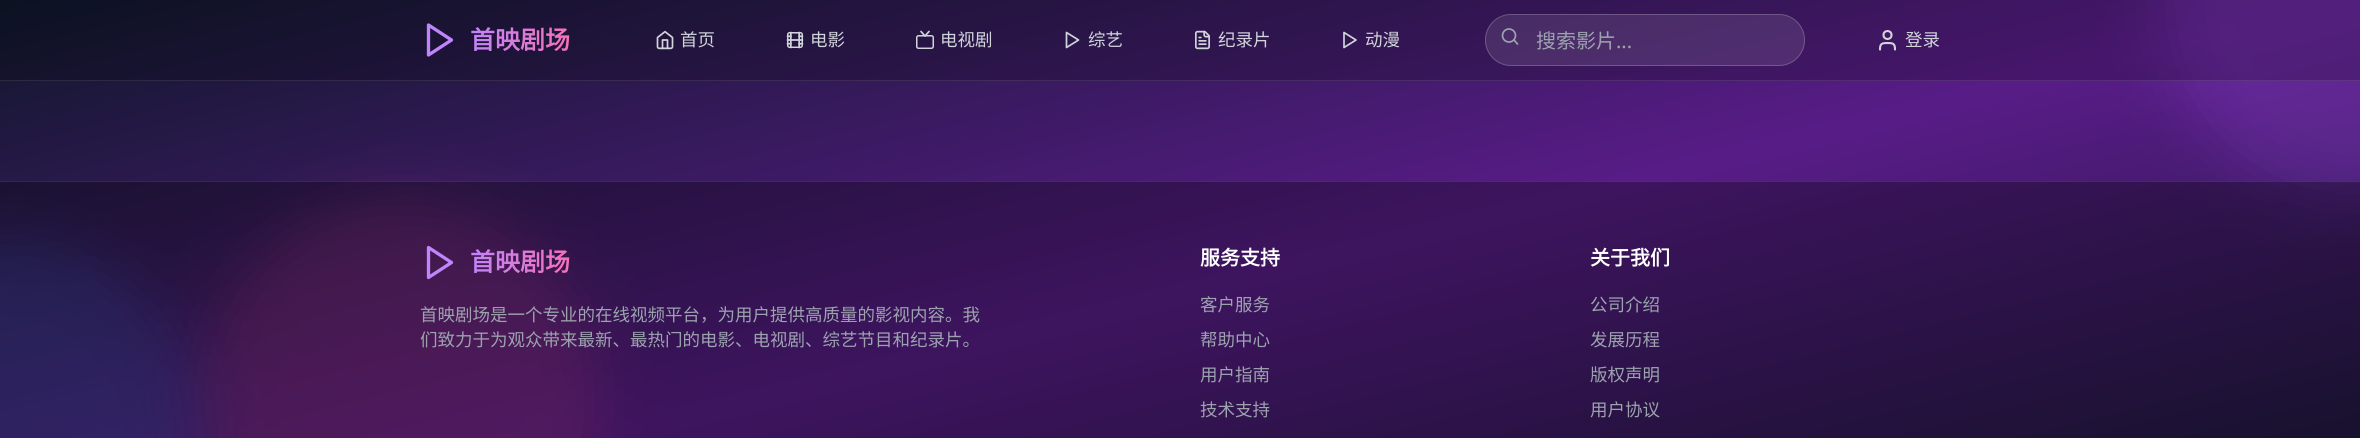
#include <cairo/cairo.h>
#include <math.h>
#include <stddef.h>


static void rounded_rect(cairo_t *cr, double x, double y, double w, double h, double r) {
  cairo_new_sub_path(cr);
  cairo_arc(cr, x + w - r, y + h - r, r, 0, M_PI / 2);
  cairo_arc(cr, x + r, y + h - r, r, M_PI / 2, M_PI);
  cairo_arc(cr, x + r, y + r, r, M_PI, 1.5 * M_PI);
  cairo_arc(cr, x + w - r, y + r, r, 1.5 * M_PI, 2 * M_PI);
  cairo_close_path(cr);
}

static void draw_shadow(cairo_t *cr, double x, double y, double w, double h, double r, double blur, double alpha) {
  cairo_push_group_with_content(cr, CAIRO_CONTENT_ALPHA);
  cairo_set_operator(cr, CAIRO_OPERATOR_SOURCE);
  for (int i = 15; i >= -15 && fmin(w, h) + blur * i / 3 > 0; i -= 2) {
    double e = blur * i / 6;
    cairo_set_source_rgba(cr, 0, 0, 0, alpha * erfc((i - 1) / 8.5) / 2);
    rounded_rect(cr, x - e, y - e, w + 2 * e, h + 2 * e, fmax(0, fmin(r + e + blur * .6, fmin(w, h) / 2 + e)));
    cairo_fill(cr);
  }
  cairo_pattern_t *soft = cairo_pop_group(cr);
  cairo_mask(cr, soft);
  cairo_pattern_destroy(soft);
}

static void draw_image(cairo_t *cr, const char *path, double x, double y, double w, double h) {
  cairo_surface_t *image = cairo_image_surface_create_from_png(path);
  cairo_save(cr);
  cairo_set_source_surface(cr, image, x, y);
  cairo_rectangle(cr, x, y, w, h);
  cairo_fill(cr);
  cairo_restore(cr);
  cairo_surface_destroy(image);
}

static void draw(cairo_t *cr) {
  cairo_pattern_t *gradient;
  cairo_set_source_rgb(cr, 1, 1, 1);
  cairo_paint(cr);
  gradient = cairo_pattern_create_linear(1042, -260, 1318, 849);
  cairo_pattern_add_color_stop_rgba(gradient, 0, 15 / 255.0, 23 / 255.0, 42 / 255.0, 1);
  cairo_pattern_add_color_stop_rgba(gradient, 0.5, 88 / 255.0, 28 / 255.0, 135 / 255.0, 1);
  cairo_pattern_add_color_stop_rgba(gradient, 1, 15 / 255.0, 23 / 255.0, 42 / 255.0, 1);
  cairo_set_source(cr, gradient);
  cairo_pattern_destroy(gradient);
  cairo_rectangle(cr, 0, 0, 2360, 438);
  cairo_fill(cr);
  cairo_set_source_rgb(cr, 236 / 255.0, 72 / 255.0, 153 / 255.0);
  draw_shadow(cr, 200, 200, 400, 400, 200, 30, 0.2);
  cairo_set_source_rgb(cr, 168 / 255.0, 85 / 255.0, 247 / 255.0);
  draw_shadow(cr, 2160, -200, 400, 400, 200, 30, 0.2);
  cairo_set_source_rgb(cr, 59 / 255.0, 130 / 255.0, 246 / 255.0);
  draw_shadow(cr, -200, 239, 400, 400, 200, 30, 0.2);
  cairo_set_source_rgba(cr, 0, 0, 0, 0.2);
  cairo_rectangle(cr, 0, 0, 2360, 81);
  cairo_fill(cr);
  cairo_set_source_rgba(cr, 1, 1, 1, 0.1);
  cairo_rectangle(cr, 0, 80, 2360, 1);
  cairo_fill(cr);
  cairo_new_path(cr);
  cairo_move_to(cr, 428.5, 25);
  cairo_line_to(cr, 451.5, 40);
  cairo_line_to(cr, 428.5, 55);
  cairo_close_path(cr);
  cairo_set_source_rgb(cr, 192 / 255.0, 132 / 255.0, 252 / 255.0);
  cairo_set_line_width(cr, 3.3);
  cairo_set_line_cap(cr, CAIRO_LINE_CAP_ROUND);
  cairo_set_line_join(cr, CAIRO_LINE_JOIN_ROUND);
  cairo_stroke(cr);
  draw_image(cr, "images/1.png", 656, 30, 18, 20);
  draw_image(cr, "images/2.png", 786, 31, 18, 18);
  rounded_rect(cr, 916.75, 35.75, 16.5, 12.5, 1.75);
  cairo_set_source_rgb(cr, 209 / 255.0, 213 / 255.0, 219 / 255.0);
  cairo_set_line_width(cr, 1.5);
  cairo_set_line_cap(cr, CAIRO_LINE_CAP_BUTT);
  cairo_set_line_join(cr, CAIRO_LINE_JOIN_MITER);
  cairo_stroke(cr);
  cairo_new_path(cr);
  cairo_move_to(cr, 929, 31.5);
  cairo_line_to(cr, 925, 36);
  cairo_line_to(cr, 921, 31.5);
  cairo_set_line_width(cr, 1.7);
  cairo_set_line_cap(cr, CAIRO_LINE_CAP_ROUND);
  cairo_set_line_join(cr, CAIRO_LINE_JOIN_ROUND);
  cairo_stroke(cr);
  cairo_new_path(cr);
  cairo_move_to(cr, 1066.5, 32.5);
  cairo_line_to(cr, 1078.5, 40);
  cairo_line_to(cr, 1066.5, 47.5);
  cairo_close_path(cr);
  cairo_stroke(cr);
  draw_image(cr, "images/3.png", 1195, 30, 15, 20);
  cairo_new_path(cr);
  cairo_move_to(cr, 1344, 32.5);
  cairo_line_to(cr, 1356, 40);
  cairo_line_to(cr, 1344, 47.5);
  cairo_close_path(cr);
  cairo_stroke(cr);
  cairo_set_source_rgba(cr, 1, 1, 1, 0.1);
  rounded_rect(cr, 1485, 14, 320, 52, 26);
  cairo_fill(cr);
  rounded_rect(cr, 1485.5, 14.5, 319, 51, 25.5);
  cairo_set_source_rgba(cr, 1, 1, 1, 0.2);
  cairo_set_line_width(cr, 1);
  cairo_set_line_cap(cr, CAIRO_LINE_CAP_BUTT);
  cairo_set_line_join(cr, CAIRO_LINE_JOIN_MITER);
  cairo_stroke(cr);
  cairo_arc(cr, 1509, 35.5, 6.5, 0, 2 * M_PI);
  cairo_set_source_rgb(cr, 156 / 255.0, 163 / 255.0, 175 / 255.0);
  cairo_set_line_width(cr, 1.7);
  cairo_stroke(cr);
  cairo_new_path(cr);
  cairo_move_to(cr, 1517.5, 44);
  cairo_line_to(cr, 1514, 40);
  cairo_set_line_cap(cr, CAIRO_LINE_CAP_ROUND);
  cairo_set_line_join(cr, CAIRO_LINE_JOIN_ROUND);
  cairo_stroke(cr);
  cairo_new_path(cr);
  cairo_move_to(cr, 1895, 49.5);
  cairo_curve_to(cr, 1895, 43.5, 1893, 43, 1887.5, 43);
  cairo_curve_to(cr, 1882, 43, 1880, 43.5, 1880, 49.5);
  cairo_set_source_rgb(cr, 209 / 255.0, 213 / 255.0, 219 / 255.0);
  cairo_set_line_width(cr, 2.1);
  cairo_stroke(cr);
  cairo_arc(cr, 1887.5, 35, 4, 0, 2 * M_PI);
  cairo_set_line_cap(cr, CAIRO_LINE_CAP_BUTT);
  cairo_set_line_join(cr, CAIRO_LINE_JOIN_MITER);
  cairo_stroke(cr);
  cairo_set_source_rgba(cr, 0, 0, 0, 0.3);
  cairo_rectangle(cr, 0, 181, 2360, 257);
  cairo_fill(cr);
  cairo_set_source_rgba(cr, 1, 1, 1, 0.1);
  cairo_rectangle(cr, 0, 181, 2360, 1);
  cairo_fill(cr);
  cairo_new_path(cr);
  cairo_move_to(cr, 428.5, 247.5);
  cairo_line_to(cr, 451.5, 262.5);
  cairo_line_to(cr, 428.5, 277.5);
  cairo_close_path(cr);
  cairo_set_source_rgb(cr, 192 / 255.0, 132 / 255.0, 252 / 255.0);
  cairo_set_line_width(cr, 3.3);
  cairo_set_line_cap(cr, CAIRO_LINE_CAP_ROUND);
  cairo_set_line_join(cr, CAIRO_LINE_JOIN_ROUND);
  cairo_stroke(cr);
  cairo_select_font_face(cr, "Noto Sans CJK SC", CAIRO_FONT_SLANT_NORMAL, CAIRO_FONT_WEIGHT_BOLD);
  cairo_set_font_size(cr, 25);
  gradient = cairo_pattern_create_linear(470, 40, 570, 40);
  cairo_pattern_add_color_stop_rgba(gradient, 0, 192 / 255.0, 132 / 255.0, 252 / 255.0, 1);
  cairo_pattern_add_color_stop_rgba(gradient, 1, 244 / 255.0, 114 / 255.0, 182 / 255.0, 1);
  cairo_set_source(cr, gradient);
  cairo_pattern_destroy(gradient);
  cairo_move_to(cr, 470, 49);
  cairo_show_text(cr, "首映剧场");
  cairo_select_font_face(cr, "Noto Sans CJK SC", CAIRO_FONT_SLANT_NORMAL, CAIRO_FONT_WEIGHT_NORMAL);
  cairo_set_font_size(cr, 17.5);
  cairo_set_source_rgb(cr, 209 / 255.0, 213 / 255.0, 219 / 255.0);
  cairo_move_to(cr, 680, 46);
  cairo_show_text(cr, "首页");
  cairo_move_to(cr, 810, 46);
  cairo_show_text(cr, "电影");
  cairo_move_to(cr, 940, 46);
  cairo_show_text(cr, "电视剧");
  cairo_move_to(cr, 1088, 46);
  cairo_show_text(cr, "综艺");
  cairo_move_to(cr, 1218, 46);
  cairo_show_text(cr, "纪录片");
  cairo_move_to(cr, 1365, 46);
  cairo_show_text(cr, "动漫");
  cairo_set_font_size(cr, 20);
  cairo_set_source_rgb(cr, 156 / 255.0, 163 / 255.0, 175 / 255.0);
  cairo_move_to(cr, 1536, 48);
  cairo_show_text(cr, "搜索影片");
  cairo_select_font_face(cr, "Noto Sans", CAIRO_FONT_SLANT_NORMAL, CAIRO_FONT_WEIGHT_NORMAL);
  cairo_move_to(cr, 1616, 48);
  cairo_show_text(cr, "...");
  cairo_select_font_face(cr, "Noto Sans CJK SC", CAIRO_FONT_SLANT_NORMAL, CAIRO_FONT_WEIGHT_NORMAL);
  cairo_set_font_size(cr, 17.5);
  cairo_set_source_rgb(cr, 209 / 255.0, 213 / 255.0, 219 / 255.0);
  cairo_move_to(cr, 1905, 46);
  cairo_show_text(cr, "登录");
  cairo_select_font_face(cr, "Noto Sans CJK SC", CAIRO_FONT_SLANT_NORMAL, CAIRO_FONT_WEIGHT_BOLD);
  cairo_set_font_size(cr, 25);
  gradient = cairo_pattern_create_linear(470, 263, 570, 263);
  cairo_pattern_add_color_stop_rgba(gradient, 0, 192 / 255.0, 132 / 255.0, 252 / 255.0, 1);
  cairo_pattern_add_color_stop_rgba(gradient, 1, 244 / 255.0, 114 / 255.0, 182 / 255.0, 1);
  cairo_set_source(cr, gradient);
  cairo_pattern_destroy(gradient);
  cairo_move_to(cr, 470, 271);
  cairo_show_text(cr, "首映剧场");
  cairo_select_font_face(cr, "Noto Sans CJK SC", CAIRO_FONT_SLANT_NORMAL, CAIRO_FONT_WEIGHT_NORMAL);
  cairo_set_font_size(cr, 17.5);
  cairo_set_source_rgb(cr, 156 / 255.0, 163 / 255.0, 175 / 255.0);
  cairo_move_to(cr, 420, 321);
  cairo_show_text(cr, "首映剧场是一个专业的在线视频平台，为用户提供高质量的影视内容。我");
  cairo_move_to(cr, 420, 346);
  cairo_show_text(cr, "们致力于为观众带来最新、最热门的电影、电视剧、综艺节目和纪录片。");
  cairo_select_font_face(cr, "Noto Sans CJK SC", CAIRO_FONT_SLANT_NORMAL, CAIRO_FONT_WEIGHT_BOLD);
  cairo_set_font_size(cr, 20);
  cairo_set_source_rgb(cr, 1, 1, 1);
  cairo_move_to(cr, 1200, 265);
  cairo_show_text(cr, "服务支持");
  cairo_select_font_face(cr, "Noto Sans CJK SC", CAIRO_FONT_SLANT_NORMAL, CAIRO_FONT_WEIGHT_NORMAL);
  cairo_set_font_size(cr, 17.5);
  cairo_set_source_rgb(cr, 156 / 255.0, 163 / 255.0, 175 / 255.0);
  cairo_move_to(cr, 1200, 311);
  cairo_show_text(cr, "客户服务");
  cairo_move_to(cr, 1200, 346);
  cairo_show_text(cr, "帮助中心");
  cairo_move_to(cr, 1200, 381);
  cairo_show_text(cr, "用户指南");
  cairo_move_to(cr, 1200, 416);
  cairo_show_text(cr, "技术支持");
  cairo_select_font_face(cr, "Noto Sans CJK SC", CAIRO_FONT_SLANT_NORMAL, CAIRO_FONT_WEIGHT_BOLD);
  cairo_set_font_size(cr, 20);
  cairo_set_source_rgb(cr, 1, 1, 1);
  cairo_move_to(cr, 1590, 265);
  cairo_show_text(cr, "关于我们");
  cairo_select_font_face(cr, "Noto Sans CJK SC", CAIRO_FONT_SLANT_NORMAL, CAIRO_FONT_WEIGHT_NORMAL);
  cairo_set_font_size(cr, 17.5);
  cairo_set_source_rgb(cr, 156 / 255.0, 163 / 255.0, 175 / 255.0);
  cairo_move_to(cr, 1590, 311);
  cairo_show_text(cr, "公司介绍");
  cairo_move_to(cr, 1590, 346);
  cairo_show_text(cr, "发展历程");
  cairo_move_to(cr, 1590, 381);
  cairo_show_text(cr, "版权声明");
  cairo_move_to(cr, 1590, 416);
  cairo_show_text(cr, "用户协议");
}

int main(void) {
  cairo_surface_t *surface = cairo_image_surface_create(CAIRO_FORMAT_RGB24, 2360, 438);
  cairo_t *cr = cairo_create(surface);
  cairo_font_options_t *options = cairo_font_options_create();
  cairo_font_options_set_hint_metrics(options, CAIRO_HINT_METRICS_OFF);
  cairo_font_options_set_hint_style(options, CAIRO_HINT_STYLE_NONE);
  cairo_set_font_options(cr, options);
  cairo_set_miter_limit(cr, 4);
  draw(cr);
  cairo_surface_write_to_png(surface, "out.png");
  cairo_font_options_destroy(options);
  cairo_destroy(cr);
  cairo_surface_destroy(surface);
  return 0;
}
